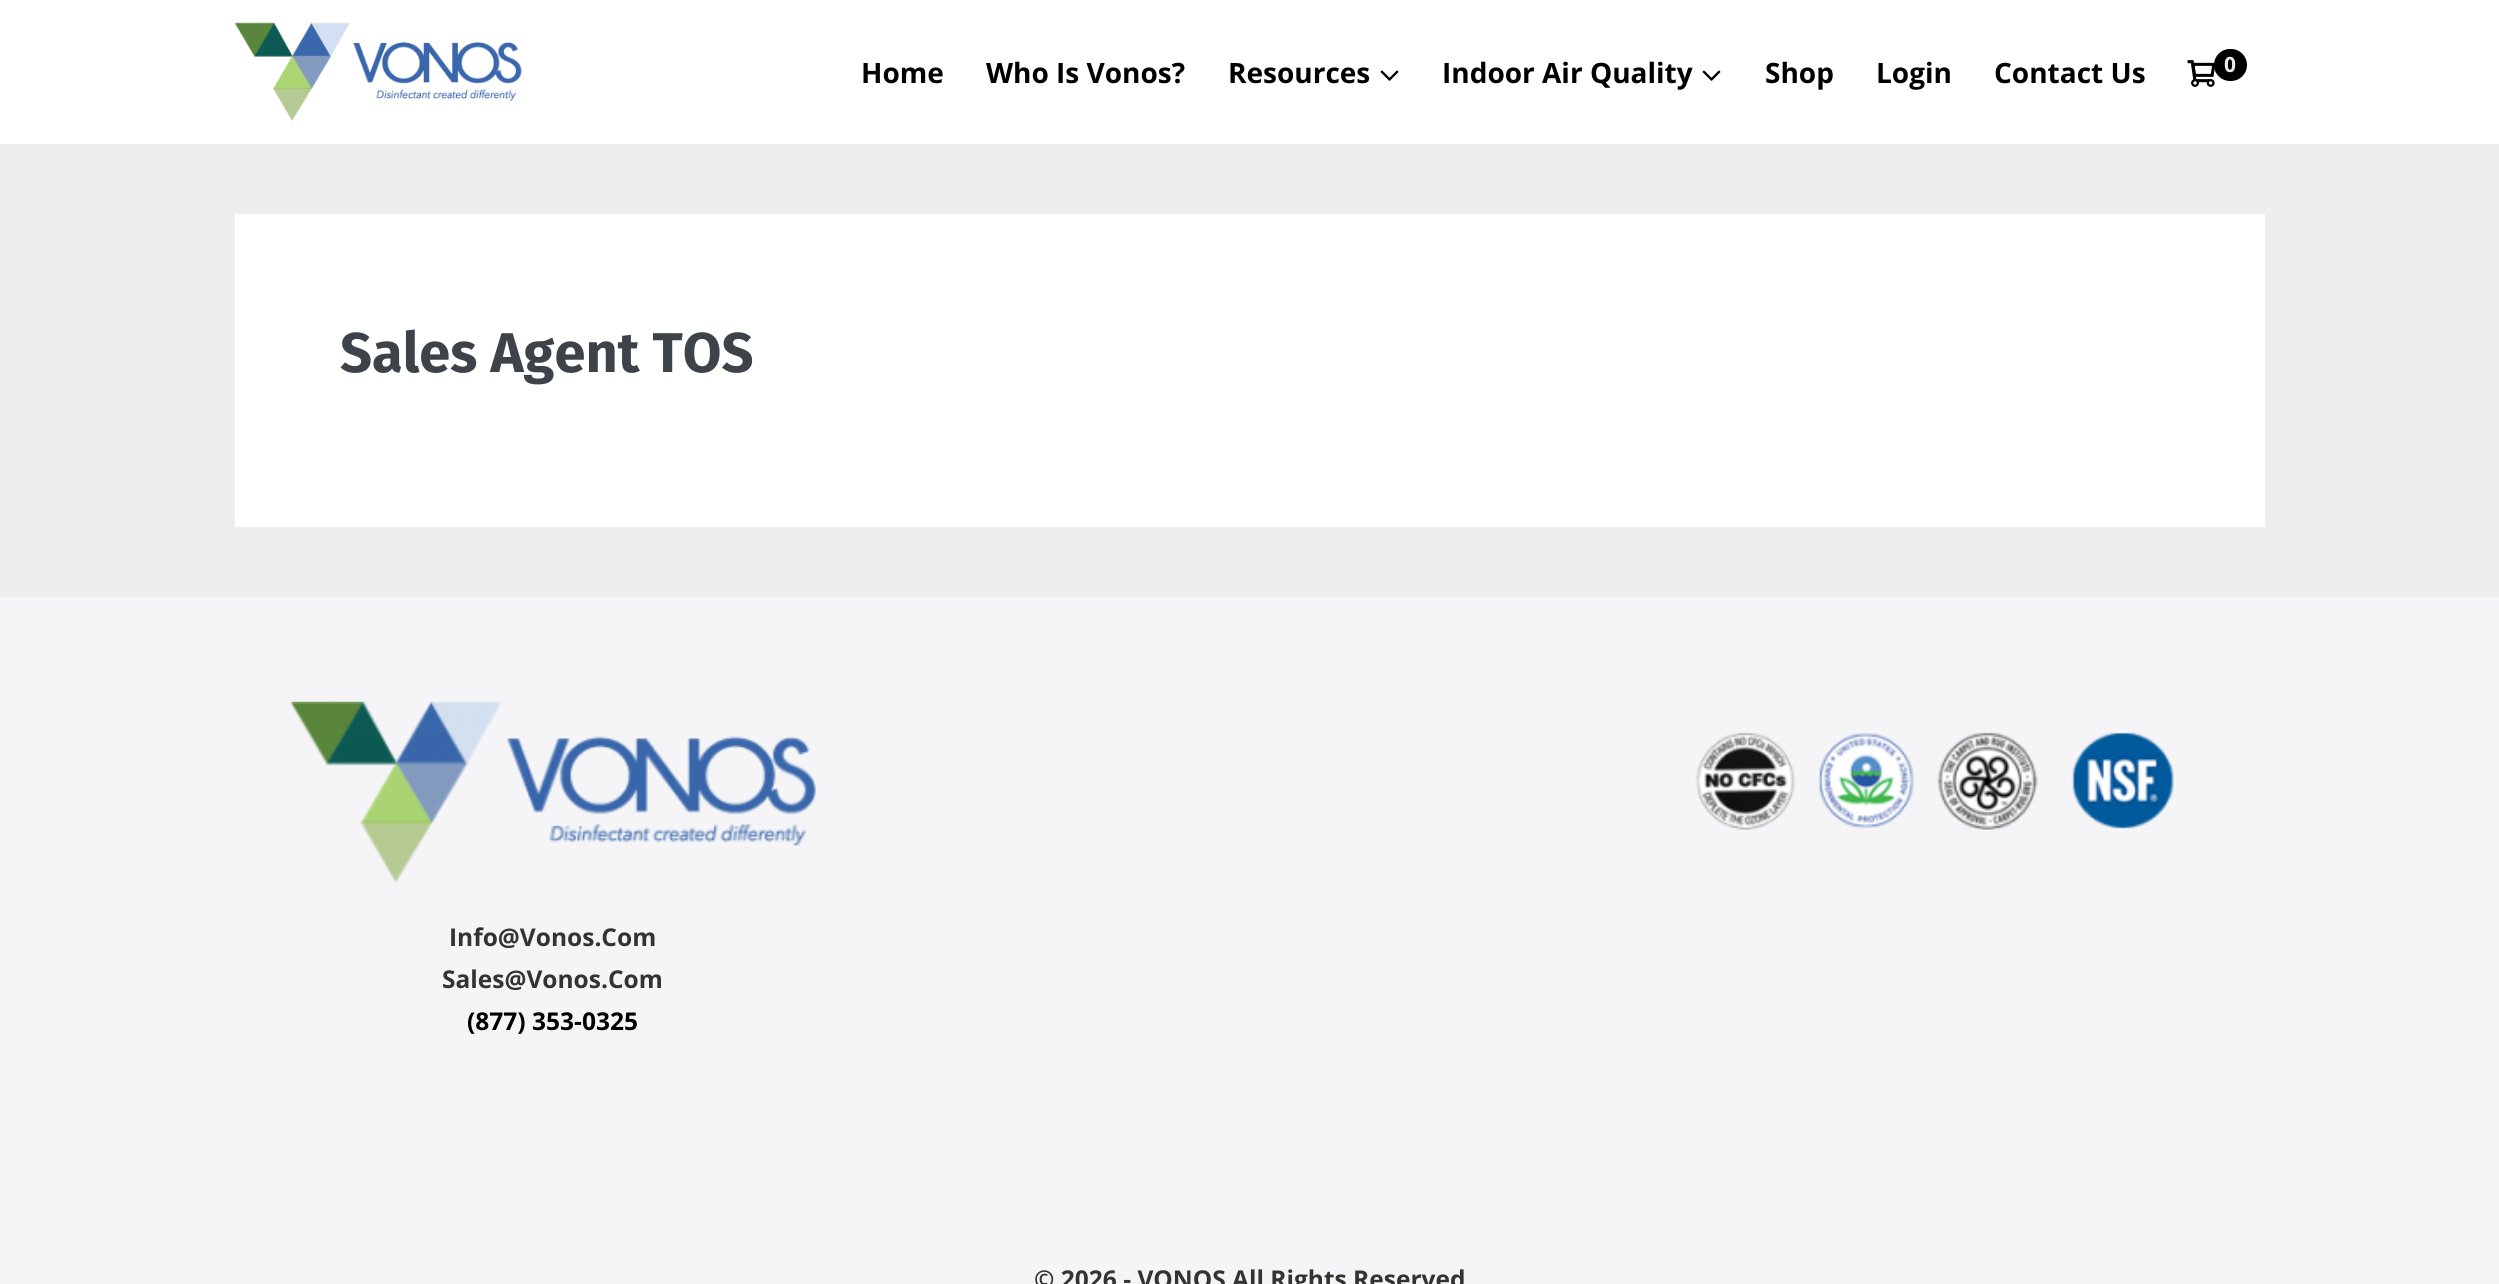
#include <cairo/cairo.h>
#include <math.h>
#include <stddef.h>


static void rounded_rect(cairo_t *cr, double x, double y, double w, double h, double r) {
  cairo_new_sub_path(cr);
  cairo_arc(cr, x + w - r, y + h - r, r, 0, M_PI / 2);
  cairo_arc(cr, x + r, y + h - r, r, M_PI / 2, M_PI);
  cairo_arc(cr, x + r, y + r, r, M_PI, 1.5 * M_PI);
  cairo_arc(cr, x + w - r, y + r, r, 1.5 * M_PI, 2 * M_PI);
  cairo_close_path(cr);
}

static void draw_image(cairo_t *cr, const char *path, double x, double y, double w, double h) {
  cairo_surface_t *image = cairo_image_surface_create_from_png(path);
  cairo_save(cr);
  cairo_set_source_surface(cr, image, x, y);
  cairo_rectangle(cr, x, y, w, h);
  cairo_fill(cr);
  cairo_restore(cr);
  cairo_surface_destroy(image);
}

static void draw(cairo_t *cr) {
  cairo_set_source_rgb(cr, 238 / 255.0, 238 / 255.0, 238 / 255.0);
  cairo_paint(cr);
  cairo_set_source_rgb(cr, 1, 1, 1);
  cairo_rectangle(cr, 0, 0, 2499, 144);
  cairo_fill(cr);
  draw_image(cr, "images/1.png", 234, 22, 288, 99);
  draw_image(cr, "images/2.png", 1380, 70, 19, 11);
  draw_image(cr, "images/2.png", 1702, 70, 19, 11);
  draw_image(cr, "images/3.png", 2187, 60, 28, 27);
  cairo_set_source_rgb(cr, 0, 0, 0);
  rounded_rect(cr, 2214, 49, 33, 32, 16);
  cairo_fill(cr);
  cairo_set_source_rgb(cr, 1, 1, 1);
  cairo_rectangle(cr, 235, 214, 2030, 313);
  cairo_fill(cr);
  cairo_set_source_rgb(cr, 245 / 255.0, 245 / 255.0, 247 / 255.0);
  cairo_rectangle(cr, 0, 597, 2499, 687);
  cairo_fill(cr);
  draw_image(cr, "images/4.png", 1694, 726, 480, 104);
  draw_image(cr, "images/5.png", 290, 701, 526, 181);
  cairo_select_font_face(cr, "Open Sans", CAIRO_FONT_SLANT_NORMAL, CAIRO_FONT_WEIGHT_BOLD);
  cairo_set_font_size(cr, 28);
  cairo_set_source_rgb(cr, 0, 0, 0);
  cairo_move_to(cr, 861, 83);
  cairo_show_text(cr, "Home");
  cairo_move_to(cr, 986, 83);
  cairo_show_text(cr, "Who Is Vonos?");
  cairo_move_to(cr, 1228, 83);
  cairo_show_text(cr, "Resources");
  cairo_move_to(cr, 1442, 83);
  cairo_show_text(cr, "Indoor Air Quality");
  cairo_move_to(cr, 1765, 83);
  cairo_show_text(cr, "Shop");
  cairo_move_to(cr, 1876, 83);
  cairo_show_text(cr, "Login");
  cairo_move_to(cr, 1994, 83);
  cairo_show_text(cr, "Contact Us");
  cairo_set_font_size(cr, 21);
  cairo_set_source_rgb(cr, 236 / 255.0, 236 / 255.0, 236 / 255.0);
  cairo_move_to(cr, 2224, 72);
  cairo_show_text(cr, "0");
  cairo_select_font_face(cr, "Fira Sans", CAIRO_FONT_SLANT_NORMAL, CAIRO_FONT_WEIGHT_BOLD);
  cairo_set_font_size(cr, 56);
  cairo_set_source_rgb(cr, 62 / 255.0, 67 / 255.0, 73 / 255.0);
  cairo_move_to(cr, 340, 372);
  cairo_show_text(cr, "Sales Agent TOS");
  cairo_select_font_face(cr, "Open Sans", CAIRO_FONT_SLANT_NORMAL, CAIRO_FONT_WEIGHT_BOLD);
  cairo_set_font_size(cr, 24.5);
  cairo_set_source_rgb(cr, 51 / 255.0, 51 / 255.0, 51 / 255.0);
  cairo_move_to(cr, 449, 946);
  cairo_show_text(cr, "Info@Vonos.Com");
  cairo_move_to(cr, 442, 988);
  cairo_show_text(cr, "Sales@Vonos.Com");
  cairo_set_source_rgb(cr, 0, 0, 0);
  cairo_move_to(cr, 467, 1030);
  cairo_show_text(cr, "(877) 353-0325");
  cairo_set_source_rgb(cr, 51 / 255.0, 51 / 255.0, 51 / 255.0);
  cairo_move_to(cr, 1034, 1288);
  cairo_show_text(cr, "© 2026 - VONOS All Rights Reserved");
}

int main(void) {
  cairo_surface_t *surface = cairo_image_surface_create(CAIRO_FORMAT_RGB24, 2499, 1284);
  cairo_t *cr = cairo_create(surface);
  cairo_font_options_t *options = cairo_font_options_create();
  cairo_font_options_set_hint_metrics(options, CAIRO_HINT_METRICS_OFF);
  cairo_font_options_set_hint_style(options, CAIRO_HINT_STYLE_NONE);
  cairo_set_font_options(cr, options);
  cairo_set_miter_limit(cr, 4);
  draw(cr);
  cairo_surface_write_to_png(surface, "out.png");
  cairo_font_options_destroy(options);
  cairo_destroy(cr);
  cairo_surface_destroy(surface);
  return 0;
}
